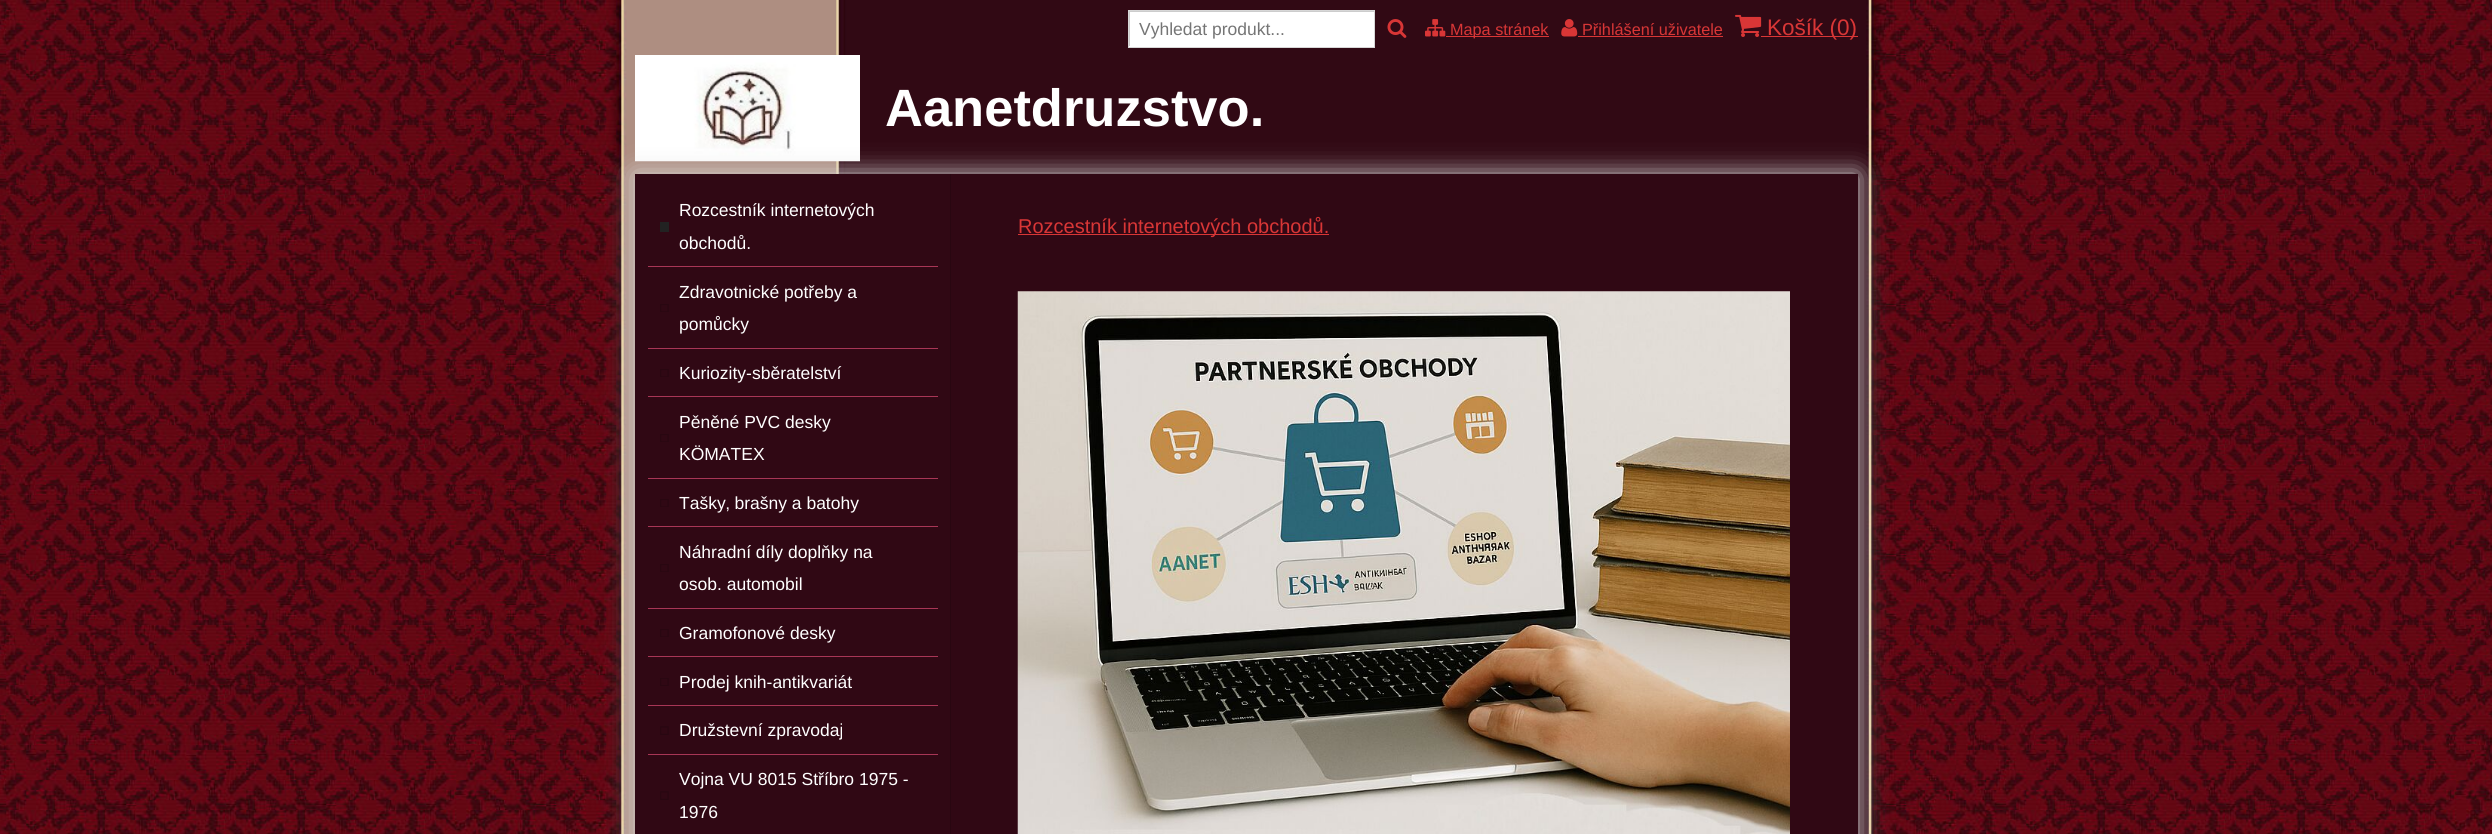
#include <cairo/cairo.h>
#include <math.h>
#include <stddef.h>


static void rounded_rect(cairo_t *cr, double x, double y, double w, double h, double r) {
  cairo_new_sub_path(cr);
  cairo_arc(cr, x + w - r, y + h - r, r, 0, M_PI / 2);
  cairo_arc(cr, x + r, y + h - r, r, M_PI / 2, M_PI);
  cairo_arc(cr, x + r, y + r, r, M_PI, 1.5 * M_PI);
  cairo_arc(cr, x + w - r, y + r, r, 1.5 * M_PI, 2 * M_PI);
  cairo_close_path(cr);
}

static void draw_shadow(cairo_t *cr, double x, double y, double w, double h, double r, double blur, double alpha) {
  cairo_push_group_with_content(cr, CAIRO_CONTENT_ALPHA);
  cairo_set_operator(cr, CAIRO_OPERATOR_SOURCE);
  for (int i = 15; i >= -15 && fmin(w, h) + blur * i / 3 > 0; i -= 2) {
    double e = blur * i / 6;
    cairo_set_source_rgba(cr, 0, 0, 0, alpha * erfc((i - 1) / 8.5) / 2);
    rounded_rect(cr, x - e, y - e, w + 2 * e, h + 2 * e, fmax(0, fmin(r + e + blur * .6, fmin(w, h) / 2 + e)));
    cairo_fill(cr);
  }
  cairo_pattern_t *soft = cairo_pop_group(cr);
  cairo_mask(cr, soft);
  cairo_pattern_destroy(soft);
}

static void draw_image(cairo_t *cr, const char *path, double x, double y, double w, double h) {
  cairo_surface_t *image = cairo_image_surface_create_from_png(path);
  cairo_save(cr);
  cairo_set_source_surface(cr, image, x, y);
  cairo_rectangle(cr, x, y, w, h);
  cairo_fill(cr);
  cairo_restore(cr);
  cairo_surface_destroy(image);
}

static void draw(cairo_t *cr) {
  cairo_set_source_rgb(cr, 1, 1, 1);
  cairo_paint(cr);
  draw_image(cr, "images/1.png", 0, 0, 2492, 834);
  cairo_set_source_rgb(cr, 1, 1, 1);
  cairo_rectangle(cr, 1129, 12, 245, 35);
  cairo_fill(cr);
  cairo_save(cr);
  cairo_rectangle(cr, 1129, 11, 245, 35);
  cairo_clip(cr);
  cairo_set_source_rgb(cr, 204 / 255.0, 204 / 255.0, 204 / 255.0);
  cairo_set_fill_rule(cr, CAIRO_FILL_RULE_EVEN_ODD);
  cairo_new_path(cr);
  cairo_move_to(cr, 1005, -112);
  cairo_line_to(cr, 1498, -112);
  cairo_line_to(cr, 1498, 170);
  cairo_line_to(cr, 1005, 170);
  cairo_close_path(cr);
  cairo_move_to(cr, 1130, 12);
  cairo_line_to(cr, 1375, 12);
  cairo_line_to(cr, 1375, 48);
  cairo_line_to(cr, 1130, 48);
  cairo_close_path(cr);
  cairo_fill(cr);
  cairo_restore(cr);
  cairo_rectangle(cr, 1128.5, 10.5, 246, 37);
  cairo_set_source_rgb(cr, 215 / 255.0, 215 / 255.0, 215 / 255.0);
  cairo_set_line_width(cr, 1);
  cairo_stroke(cr);
  draw_image(cr, "images/2.png", 1387, 19, 20, 19);
  draw_image(cr, "images/3.png", 1425, 19, 21, 18);
  cairo_set_source_rgb(cr, 217 / 255.0, 54 / 255.0, 54 / 255.0);
  cairo_rectangle(cr, 1446, 36, 103, 1);
  cairo_fill(cr);
  draw_image(cr, "images/4.png", 1561, 19, 17, 18);
  cairo_rectangle(cr, 1578, 36, 145, 1);
  cairo_fill(cr);
  draw_image(cr, "images/5.png", 1735, 14, 27, 23);
  cairo_rectangle(cr, 1761, 36, 97, 1);
  cairo_fill(cr);
  draw_image(cr, "images/6.png", 635, 55, 225, 107);
  cairo_set_source_rgb(cr, 216 / 255.0, 216 / 255.0, 216 / 255.0);
  draw_shadow(cr, 635, 174, 1223, 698, 0, 12.5, 1);
  cairo_set_source_rgb(cr, 48 / 255.0, 8 / 255.0, 20 / 255.0);
  cairo_rectangle(cr, 635, 174, 1223, 660);
  cairo_fill(cr);
  cairo_set_source_rgb(cr, 41 / 255.0, 7 / 255.0, 17 / 255.0);
  cairo_rectangle(cr, 950, 174, 1, 660);
  cairo_fill(cr);
  cairo_set_source_rgb(cr, 34 / 255.0, 34 / 255.0, 34 / 255.0);
  cairo_rectangle(cr, 660, 222, 9, 10);
  cairo_fill(cr);
  cairo_set_source_rgb(cr, 168 / 255.0, 54 / 255.0, 86 / 255.0);
  cairo_rectangle(cr, 648, 266, 290, 1);
  cairo_fill(cr);
  draw_image(cr, "images/7.png", 660, 304, 9, 8);
  cairo_rectangle(cr, 648, 348, 290, 1);
  cairo_fill(cr);
  draw_image(cr, "images/7.png", 660, 369, 9, 8);
  cairo_rectangle(cr, 648, 396, 290, 1);
  cairo_fill(cr);
  draw_image(cr, "images/7.png", 660, 434, 9, 8);
  cairo_rectangle(cr, 648, 478, 290, 1);
  cairo_fill(cr);
  draw_image(cr, "images/7.png", 660, 499, 9, 8);
  cairo_rectangle(cr, 648, 526, 290, 1);
  cairo_fill(cr);
  draw_image(cr, "images/7.png", 660, 564, 9, 8);
  cairo_rectangle(cr, 648, 608, 290, 1);
  cairo_fill(cr);
  draw_image(cr, "images/7.png", 660, 629, 9, 8);
  cairo_rectangle(cr, 648, 656, 290, 1);
  cairo_fill(cr);
  draw_image(cr, "images/8.png", 660, 678, 9, 8);
  cairo_rectangle(cr, 648, 705, 290, 1);
  cairo_fill(cr);
  draw_image(cr, "images/9.png", 660, 726, 9, 9);
  cairo_rectangle(cr, 648, 754, 290, 1);
  cairo_fill(cr);
  draw_image(cr, "images/9.png", 660, 791, 9, 9);
  cairo_set_source_rgb(cr, 217 / 255.0, 54 / 255.0, 54 / 255.0);
  cairo_rectangle(cr, 1018, 234, 311, 1);
  cairo_fill(cr);
  draw_image(cr, "images/10.png", 1017, 291, 773, 543);
  cairo_select_font_face(cr, "Liberation Sans", CAIRO_FONT_SLANT_NORMAL, CAIRO_FONT_WEIGHT_NORMAL);
  cairo_set_font_size(cr, 17.5);
  cairo_set_source_rgb(cr, 117 / 255.0, 117 / 255.0, 117 / 255.0);
  cairo_move_to(cr, 1139, 35);
  cairo_show_text(cr, "Vyhledat produkt...");
  cairo_set_font_size(cr, 16.25);
  cairo_set_source_rgb(cr, 217 / 255.0, 54 / 255.0, 54 / 255.0);
  cairo_move_to(cr, 1450, 35);
  cairo_show_text(cr, "Mapa stránek");
  cairo_move_to(cr, 1582, 35);
  cairo_show_text(cr, "Přihlášení uživatele");
  cairo_set_font_size(cr, 22.5);
  cairo_move_to(cr, 1767, 35);
  cairo_show_text(cr, "Košík (0)");
  cairo_select_font_face(cr, "Liberation Sans", CAIRO_FONT_SLANT_NORMAL, CAIRO_FONT_WEIGHT_BOLD);
  cairo_set_font_size(cr, 52.5);
  cairo_set_source_rgb(cr, 1, 1, 1);
  cairo_move_to(cr, 885, 126);
  cairo_show_text(cr, "Aanetdruzstvo.");
  cairo_select_font_face(cr, "Liberation Sans", CAIRO_FONT_SLANT_NORMAL, CAIRO_FONT_WEIGHT_NORMAL);
  cairo_set_font_size(cr, 17.5);
  cairo_move_to(cr, 679, 216);
  cairo_show_text(cr, "Rozcestník internetových");
  cairo_move_to(cr, 679, 249);
  cairo_show_text(cr, "obchodů.");
  cairo_move_to(cr, 679, 298);
  cairo_show_text(cr, "Zdravotnické potřeby a");
  cairo_move_to(cr, 679, 330);
  cairo_show_text(cr, "pomůcky");
  cairo_move_to(cr, 679, 379);
  cairo_show_text(cr, "Kuriozity-sběratelství");
  cairo_move_to(cr, 679, 428);
  cairo_show_text(cr, "Pěněné PVC desky");
  cairo_move_to(cr, 679, 460);
  cairo_show_text(cr, "KÖMATEX");
  cairo_move_to(cr, 679, 509);
  cairo_show_text(cr, "Tašky‚ brašny a batohy");
  cairo_move_to(cr, 679, 558);
  cairo_show_text(cr, "Náhradní díly doplňky na");
  cairo_move_to(cr, 679, 590);
  cairo_show_text(cr, "osob. automobil");
  cairo_move_to(cr, 679, 639);
  cairo_show_text(cr, "Gramofonové desky");
  cairo_move_to(cr, 679, 688);
  cairo_show_text(cr, "Prodej knih-antikvariát");
  cairo_move_to(cr, 679, 736);
  cairo_show_text(cr, "Družstevní zpravodaj");
  cairo_move_to(cr, 679, 785);
  cairo_show_text(cr, "Vojna VU 8015 Stříbro 1975 -");
  cairo_move_to(cr, 679, 818);
  cairo_show_text(cr, "1976");
  cairo_set_font_size(cr, 20);
  cairo_set_source_rgb(cr, 217 / 255.0, 54 / 255.0, 54 / 255.0);
  cairo_move_to(cr, 1018, 233);
  cairo_show_text(cr, "Rozcestník internetových obchodů.");
}

int main(void) {
  cairo_surface_t *surface = cairo_image_surface_create(CAIRO_FORMAT_RGB24, 2492, 834);
  cairo_t *cr = cairo_create(surface);
  cairo_font_options_t *options = cairo_font_options_create();
  cairo_font_options_set_hint_metrics(options, CAIRO_HINT_METRICS_OFF);
  cairo_font_options_set_hint_style(options, CAIRO_HINT_STYLE_NONE);
  cairo_set_font_options(cr, options);
  cairo_set_miter_limit(cr, 4);
  draw(cr);
  cairo_surface_write_to_png(surface, "out.png");
  cairo_font_options_destroy(options);
  cairo_destroy(cr);
  cairo_surface_destroy(surface);
  return 0;
}
